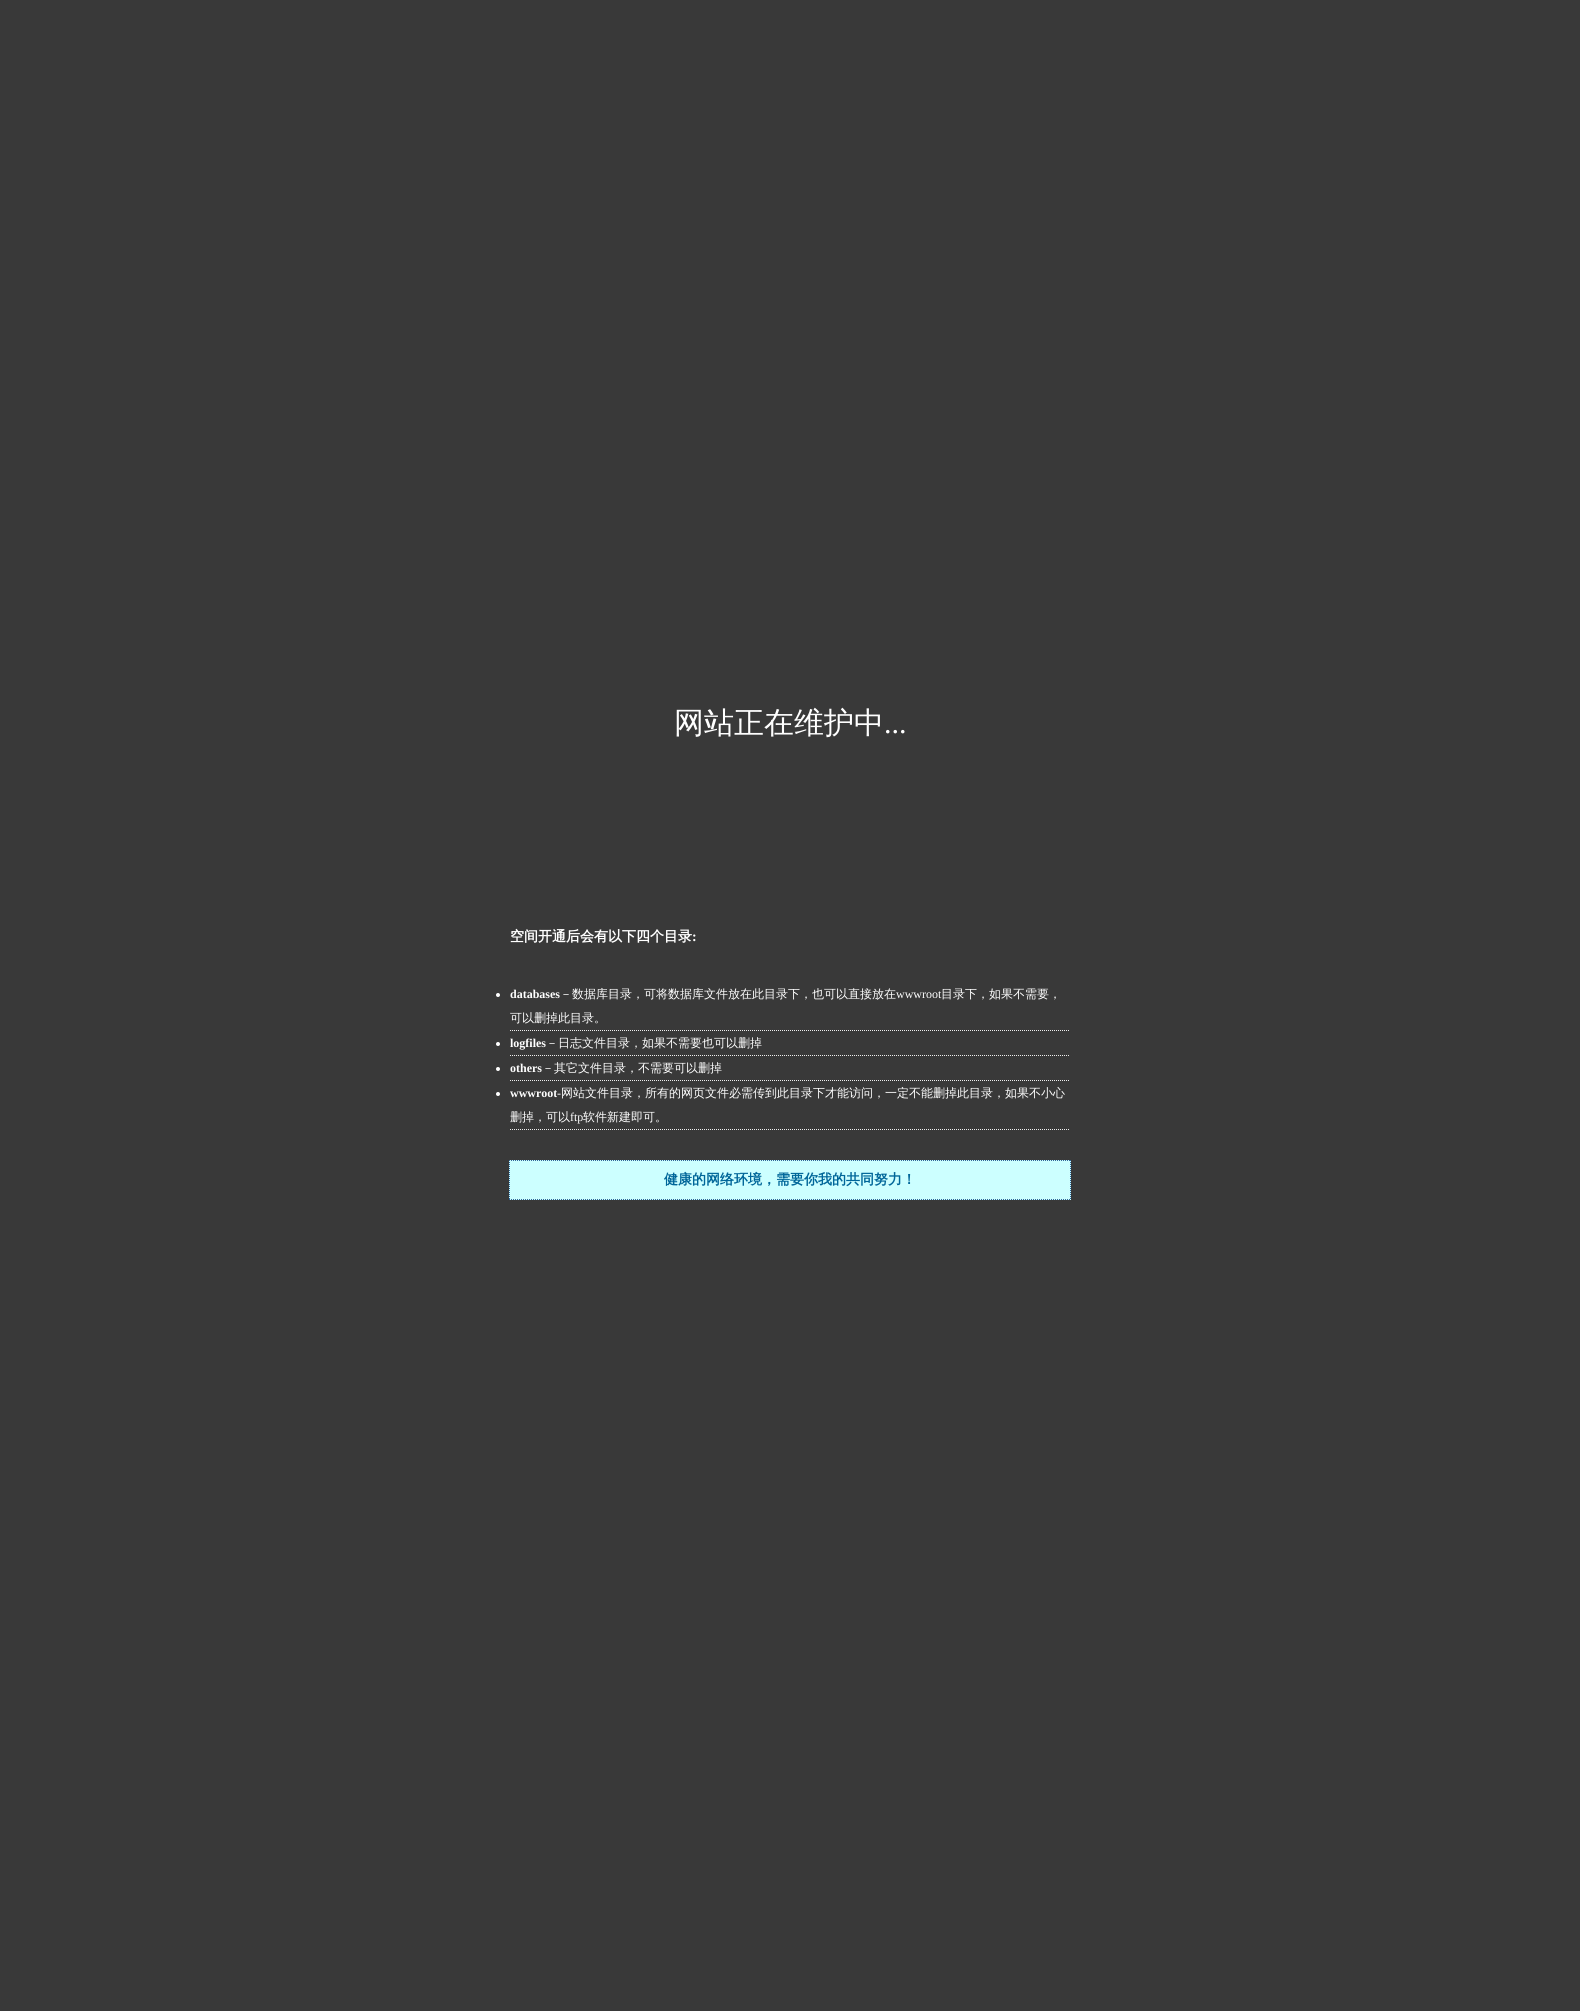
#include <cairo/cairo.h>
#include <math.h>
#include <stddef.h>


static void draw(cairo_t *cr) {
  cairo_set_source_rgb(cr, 57 / 255.0, 57 / 255.0, 57 / 255.0);
  cairo_paint(cr);
  cairo_new_path(cr);
  cairo_move_to(cr, 510, 1030.5);
  cairo_line_to(cr, 1070, 1030.5);
  cairo_set_source_rgb(cr, 238 / 255.0, 238 / 255.0, 238 / 255.0);
  cairo_set_line_width(cr, 1);
  cairo_set_dash(cr, (double[]){1, 1}, 2, 0);
  cairo_stroke(cr);
  cairo_set_source_rgb(cr, 1, 1, 1);
  cairo_arc(cr, 498, 995, 2, 0, 2 * M_PI);
  cairo_fill(cr);
  cairo_new_path(cr);
  cairo_move_to(cr, 510, 1055.5);
  cairo_line_to(cr, 1070, 1055.5);
  cairo_set_source_rgb(cr, 238 / 255.0, 238 / 255.0, 238 / 255.0);
  cairo_stroke(cr);
  cairo_set_source_rgb(cr, 1, 1, 1);
  cairo_arc(cr, 498, 1044, 2, 0, 2 * M_PI);
  cairo_fill(cr);
  cairo_new_path(cr);
  cairo_move_to(cr, 510, 1080.5);
  cairo_line_to(cr, 1070, 1080.5);
  cairo_set_source_rgb(cr, 238 / 255.0, 238 / 255.0, 238 / 255.0);
  cairo_stroke(cr);
  cairo_set_source_rgb(cr, 1, 1, 1);
  cairo_arc(cr, 498, 1069, 2, 0, 2 * M_PI);
  cairo_fill(cr);
  cairo_new_path(cr);
  cairo_move_to(cr, 510, 1129.5);
  cairo_line_to(cr, 1070, 1129.5);
  cairo_set_source_rgb(cr, 238 / 255.0, 238 / 255.0, 238 / 255.0);
  cairo_stroke(cr);
  cairo_set_source_rgb(cr, 1, 1, 1);
  cairo_arc(cr, 498, 1094, 2, 0, 2 * M_PI);
  cairo_fill(cr);
  cairo_set_source_rgb(cr, 204 / 255.0, 1, 1);
  cairo_rectangle(cr, 509, 1160, 562, 40);
  cairo_fill(cr);
  cairo_new_path(cr);
  cairo_move_to(cr, 509, 1160.5);
  cairo_line_to(cr, 1071, 1160.5);
  cairo_set_source_rgb(cr, 51 / 255.0, 102 / 255.0, 153 / 255.0);
  cairo_stroke(cr);
  cairo_new_path(cr);
  cairo_move_to(cr, 1070.5, 1160);
  cairo_line_to(cr, 1070.5, 1200);
  cairo_stroke(cr);
  cairo_new_path(cr);
  cairo_move_to(cr, 509, 1199.5);
  cairo_line_to(cr, 1071, 1199.5);
  cairo_stroke(cr);
  cairo_new_path(cr);
  cairo_move_to(cr, 509.5, 1160);
  cairo_line_to(cr, 509.5, 1200);
  cairo_stroke(cr);
  cairo_select_font_face(cr, "WenQuanYi Zen Hei Medium", CAIRO_FONT_SLANT_NORMAL, CAIRO_FONT_WEIGHT_NORMAL);
  cairo_set_font_size(cr, 30);
  cairo_set_source_rgb(cr, 1, 1, 1);
  cairo_move_to(cr, 674, 733);
  cairo_show_text(cr, "网站正在维护中");
  cairo_select_font_face(cr, "Liberation Serif", CAIRO_FONT_SLANT_NORMAL, CAIRO_FONT_WEIGHT_NORMAL);
  cairo_move_to(cr, 884, 733);
  cairo_show_text(cr, "...");
  cairo_select_font_face(cr, "WenQuanYi Zen Hei", CAIRO_FONT_SLANT_NORMAL, CAIRO_FONT_WEIGHT_BOLD);
  cairo_set_font_size(cr, 14);
  cairo_move_to(cr, 510, 941);
  cairo_show_text(cr, "空间开通后会有以下四个目录");
  cairo_select_font_face(cr, "Liberation Serif", CAIRO_FONT_SLANT_NORMAL, CAIRO_FONT_WEIGHT_BOLD);
  cairo_move_to(cr, 692, 941);
  cairo_show_text(cr, ":");
  cairo_set_font_size(cr, 12);
  cairo_move_to(cr, 510, 998);
  cairo_show_text(cr, "databases");
  cairo_select_font_face(cr, "WenQuanYi Zen Hei Medium", CAIRO_FONT_SLANT_NORMAL, CAIRO_FONT_WEIGHT_NORMAL);
  cairo_move_to(cr, 560, 998);
  cairo_show_text(cr, "－数据库目录，可将数据库文件放在此目录下，也可以直接放在");
  cairo_select_font_face(cr, "Liberation Serif", CAIRO_FONT_SLANT_NORMAL, CAIRO_FONT_WEIGHT_NORMAL);
  cairo_move_to(cr, 896, 998);
  cairo_show_text(cr, "wwwroot");
  cairo_select_font_face(cr, "WenQuanYi Zen Hei Medium", CAIRO_FONT_SLANT_NORMAL, CAIRO_FONT_WEIGHT_NORMAL);
  cairo_move_to(cr, 941, 998);
  cairo_show_text(cr, "目录下，如果不需要，");
  cairo_move_to(cr, 510, 1022);
  cairo_show_text(cr, "可以删掉此目录。");
  cairo_select_font_face(cr, "Liberation Serif", CAIRO_FONT_SLANT_NORMAL, CAIRO_FONT_WEIGHT_BOLD);
  cairo_move_to(cr, 510, 1047);
  cairo_show_text(cr, "logfiles");
  cairo_select_font_face(cr, "WenQuanYi Zen Hei Medium", CAIRO_FONT_SLANT_NORMAL, CAIRO_FONT_WEIGHT_NORMAL);
  cairo_move_to(cr, 546, 1047);
  cairo_show_text(cr, "－日志文件目录，如果不需要也可以删掉");
  cairo_select_font_face(cr, "Liberation Serif", CAIRO_FONT_SLANT_NORMAL, CAIRO_FONT_WEIGHT_BOLD);
  cairo_move_to(cr, 510, 1072);
  cairo_show_text(cr, "others");
  cairo_select_font_face(cr, "WenQuanYi Zen Hei Medium", CAIRO_FONT_SLANT_NORMAL, CAIRO_FONT_WEIGHT_NORMAL);
  cairo_move_to(cr, 542, 1072);
  cairo_show_text(cr, "－其它文件目录，不需要可以删掉");
  cairo_select_font_face(cr, "Liberation Serif", CAIRO_FONT_SLANT_NORMAL, CAIRO_FONT_WEIGHT_BOLD);
  cairo_move_to(cr, 510, 1097);
  cairo_show_text(cr, "wwwroot");
  cairo_select_font_face(cr, "Liberation Serif", CAIRO_FONT_SLANT_NORMAL, CAIRO_FONT_WEIGHT_NORMAL);
  cairo_move_to(cr, 557, 1097);
  cairo_show_text(cr, "-");
  cairo_select_font_face(cr, "WenQuanYi Zen Hei Medium", CAIRO_FONT_SLANT_NORMAL, CAIRO_FONT_WEIGHT_NORMAL);
  cairo_move_to(cr, 561, 1097);
  cairo_show_text(cr, "网站文件目录，所有的网页文件必需传到此目录下才能访问，一定不能删掉此目录，如果不小心");
  cairo_move_to(cr, 510, 1121);
  cairo_show_text(cr, "删掉，可以");
  cairo_select_font_face(cr, "Liberation Serif", CAIRO_FONT_SLANT_NORMAL, CAIRO_FONT_WEIGHT_NORMAL);
  cairo_move_to(cr, 570, 1121);
  cairo_show_text(cr, "ftp");
  cairo_select_font_face(cr, "WenQuanYi Zen Hei Medium", CAIRO_FONT_SLANT_NORMAL, CAIRO_FONT_WEIGHT_NORMAL);
  cairo_move_to(cr, 583, 1121);
  cairo_show_text(cr, "软件新建即可。");
  cairo_select_font_face(cr, "WenQuanYi Zen Hei", CAIRO_FONT_SLANT_NORMAL, CAIRO_FONT_WEIGHT_BOLD);
  cairo_set_font_size(cr, 14);
  cairo_set_source_rgb(cr, 0, 102 / 255.0, 153 / 255.0);
  cairo_move_to(cr, 664, 1184);
  cairo_show_text(cr, "健康的网络环境，需要你我的共同努力！");
}

int main(void) {
  cairo_surface_t *surface = cairo_image_surface_create(CAIRO_FORMAT_RGB24, 1580, 2011);
  cairo_t *cr = cairo_create(surface);
  cairo_font_options_t *options = cairo_font_options_create();
  cairo_font_options_set_hint_metrics(options, CAIRO_HINT_METRICS_OFF);
  cairo_font_options_set_hint_style(options, CAIRO_HINT_STYLE_NONE);
  cairo_set_font_options(cr, options);
  cairo_set_miter_limit(cr, 4);
  draw(cr);
  cairo_surface_write_to_png(surface, "out.png");
  cairo_font_options_destroy(options);
  cairo_destroy(cr);
  cairo_surface_destroy(surface);
  return 0;
}
